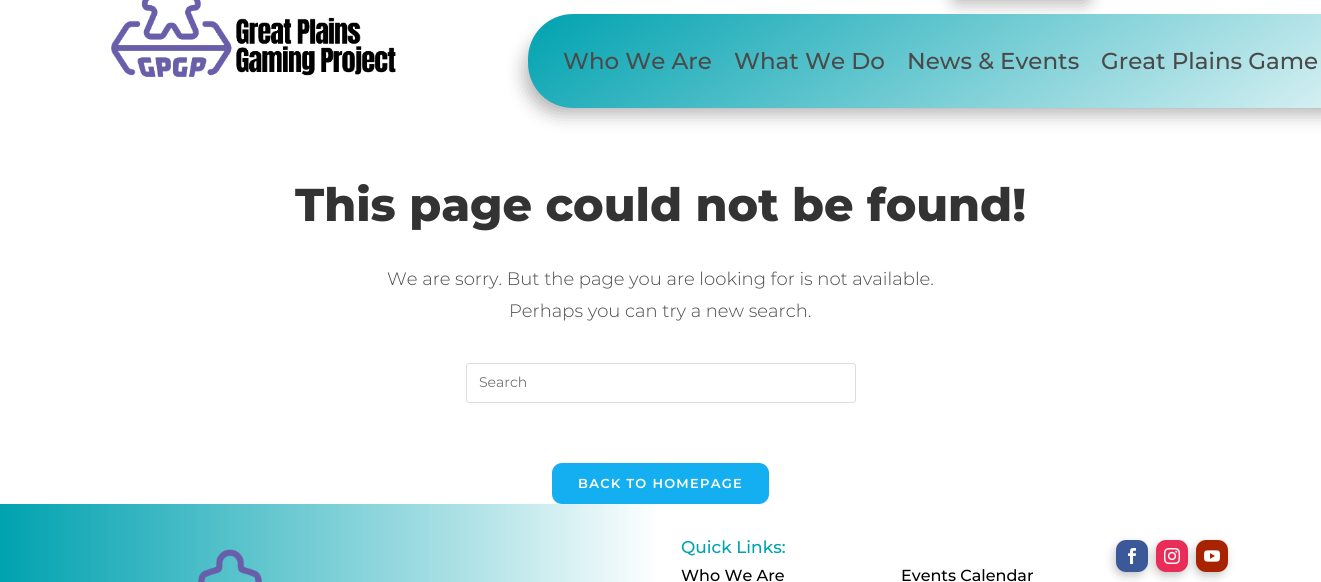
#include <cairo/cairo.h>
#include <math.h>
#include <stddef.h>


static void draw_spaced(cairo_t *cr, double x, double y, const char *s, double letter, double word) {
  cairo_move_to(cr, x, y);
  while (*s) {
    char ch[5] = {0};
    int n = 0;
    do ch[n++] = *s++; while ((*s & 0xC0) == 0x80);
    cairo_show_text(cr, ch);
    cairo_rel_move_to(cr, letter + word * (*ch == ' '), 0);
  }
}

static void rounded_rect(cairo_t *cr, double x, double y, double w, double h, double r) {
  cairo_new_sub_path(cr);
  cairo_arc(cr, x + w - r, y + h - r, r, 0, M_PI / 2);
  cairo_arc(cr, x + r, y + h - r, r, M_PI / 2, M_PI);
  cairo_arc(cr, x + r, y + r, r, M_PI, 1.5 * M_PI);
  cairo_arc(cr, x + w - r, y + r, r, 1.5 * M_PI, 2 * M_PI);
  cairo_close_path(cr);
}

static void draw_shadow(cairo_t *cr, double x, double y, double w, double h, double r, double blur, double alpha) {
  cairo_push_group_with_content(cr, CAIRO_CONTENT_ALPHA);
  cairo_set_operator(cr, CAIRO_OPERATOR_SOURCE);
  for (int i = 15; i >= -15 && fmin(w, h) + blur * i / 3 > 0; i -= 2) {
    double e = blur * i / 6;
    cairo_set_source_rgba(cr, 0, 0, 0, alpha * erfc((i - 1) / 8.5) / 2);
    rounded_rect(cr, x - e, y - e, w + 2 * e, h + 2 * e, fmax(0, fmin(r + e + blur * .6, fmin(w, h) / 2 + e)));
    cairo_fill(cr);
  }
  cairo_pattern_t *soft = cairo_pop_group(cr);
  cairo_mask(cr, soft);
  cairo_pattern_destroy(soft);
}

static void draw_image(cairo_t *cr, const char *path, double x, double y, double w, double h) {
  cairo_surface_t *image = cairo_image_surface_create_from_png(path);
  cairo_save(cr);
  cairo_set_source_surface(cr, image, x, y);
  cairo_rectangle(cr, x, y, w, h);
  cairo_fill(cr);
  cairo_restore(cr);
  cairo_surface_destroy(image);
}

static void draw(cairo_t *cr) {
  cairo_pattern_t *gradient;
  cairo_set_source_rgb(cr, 1, 1, 1);
  cairo_paint(cr);
  cairo_set_source_rgb(cr, 0, 0, 0);
  draw_shadow(cr, 954, -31, 135, 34, 4, 9, 0.3);
  draw_image(cr, "images/1.png", 111, 0, 285, 77);
  draw_shadow(cr, 525, 32, 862, 82, 39, 9, 0.3);
  gradient = cairo_pattern_create_linear(845, -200, 1197, 322);
  cairo_pattern_add_color_stop_rgba(gradient, 0, 0, 162 / 255.0, 176 / 255.0, 1);
  cairo_pattern_add_color_stop_rgba(gradient, 1, 1, 1, 1, 1);
  cairo_set_source(cr, gradient);
  cairo_pattern_destroy(gradient);
  cairo_new_path(cr);
  cairo_move_to(cr, 573, 14);
  cairo_line_to(cr, 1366, 14);
  cairo_line_to(cr, 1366, 108);
  cairo_line_to(cr, 573, 108);
  cairo_curve_to(cr, 548, 108, 528, 88, 528, 63);
  cairo_line_to(cr, 528, 59);
  cairo_curve_to(cr, 528, 34, 548, 14, 573, 14);
  cairo_close_path(cr);
  cairo_fill(cr);
  rounded_rect(cr, 466.5, 363.5, 389, 39, 2.5);
  cairo_set_source_rgb(cr, 221 / 255.0, 221 / 255.0, 221 / 255.0);
  cairo_set_line_width(cr, 1);
  cairo_stroke(cr);
  cairo_set_source_rgb(cr, 19 / 255.0, 175 / 255.0, 240 / 255.0);
  rounded_rect(cr, 552, 463, 217, 41, 10);
  cairo_fill(cr);
  gradient = cairo_pattern_create_linear(0, 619, 661, 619);
  cairo_pattern_add_color_stop_rgba(gradient, 0, 0, 162 / 255.0, 176 / 255.0, 1);
  cairo_pattern_add_color_stop_rgba(gradient, 0.73, 180 / 255.0, 228 / 255.0, 232 / 255.0, 1);
  cairo_pattern_add_color_stop_rgba(gradient, 1, 1, 1, 1, 1);
  cairo_set_source(cr, gradient);
  cairo_pattern_destroy(gradient);
  cairo_rectangle(cr, 0, 504, 655, 78);
  cairo_fill(cr);
  draw_image(cr, "images/2.png", 198, 549, 64, 33);
  cairo_set_source_rgb(cr, 0, 0, 0);
  draw_shadow(cr, 1116, 546, 28, 28, 8, 5.5, 0.3);
  cairo_set_source_rgb(cr, 59 / 255.0, 89 / 255.0, 152 / 255.0);
  rounded_rect(cr, 1116, 540, 32, 32, 10);
  cairo_fill(cr);
  draw_image(cr, "images/3.png", 1128, 548, 8, 16);
  cairo_set_source_rgb(cr, 0, 0, 0);
  draw_shadow(cr, 1156, 546, 28, 28, 8, 5.5, 0.3);
  cairo_set_source_rgb(cr, 234 / 255.0, 44 / 255.0, 89 / 255.0);
  rounded_rect(cr, 1156, 540, 32, 32, 10);
  cairo_fill(cr);
  cairo_set_source_rgb(cr, 0, 0, 0);
  draw_shadow(cr, 1196, 546, 28, 28, 8, 5.5, 0.3);
  draw_image(cr, "images/4.png", 1164, 548, 16, 16);
  cairo_set_source_rgb(cr, 168 / 255.0, 36 / 255.0, 0);
  rounded_rect(cr, 1196, 540, 32, 32, 10);
  cairo_fill(cr);
  draw_image(cr, "images/5.png", 1204, 550, 16, 12);
  cairo_select_font_face(cr, "Montserrat Medium", CAIRO_FONT_SLANT_NORMAL, CAIRO_FONT_WEIGHT_NORMAL);
  cairo_set_font_size(cr, 23);
  cairo_set_source_rgb(cr, 74 / 255.0, 74 / 255.0, 74 / 255.0);
  cairo_move_to(cr, 563, 69);
  cairo_show_text(cr, "Who We Are");
  cairo_move_to(cr, 734, 69);
  cairo_show_text(cr, "What We Do");
  cairo_move_to(cr, 907, 69);
  cairo_show_text(cr, "News & Events");
  cairo_move_to(cr, 1101, 69);
  cairo_show_text(cr, "Great Plains Game");
  cairo_select_font_face(cr, "Montserrat ExtraBold", CAIRO_FONT_SLANT_NORMAL, CAIRO_FONT_WEIGHT_NORMAL);
  cairo_set_font_size(cr, 46);
  cairo_set_source_rgb(cr, 51 / 255.0, 51 / 255.0, 51 / 255.0);
  cairo_move_to(cr, 295, 221);
  cairo_show_text(cr, "This page could not be found!");
  cairo_select_font_face(cr, "Montserrat Light", CAIRO_FONT_SLANT_NORMAL, CAIRO_FONT_WEIGHT_NORMAL);
  cairo_set_font_size(cr, 18);
  cairo_set_source_rgb(cr, 74 / 255.0, 74 / 255.0, 74 / 255.0);
  cairo_move_to(cr, 387, 285);
  cairo_show_text(cr, "We are sorry. But the page you are looking for is not available.");
  cairo_move_to(cr, 509, 317);
  cairo_show_text(cr, "Perhaps you can try a new search.");
  cairo_select_font_face(cr, "Montserrat", CAIRO_FONT_SLANT_NORMAL, CAIRO_FONT_WEIGHT_NORMAL);
  cairo_set_font_size(cr, 14);
  cairo_set_source_rgb(cr, 117 / 255.0, 117 / 255.0, 117 / 255.0);
  cairo_move_to(cr, 479, 387);
  cairo_show_text(cr, "Search");
  cairo_select_font_face(cr, "Montserrat SemiBold", CAIRO_FONT_SLANT_NORMAL, CAIRO_FONT_WEIGHT_NORMAL);
  cairo_set_font_size(cr, 13);
  cairo_set_source_rgb(cr, 1, 1, 1);
  draw_spaced(cr, 578, 488, "BACK TO HOMEPAGE", 1.25, 0);
  cairo_select_font_face(cr, "Montserrat Medium", CAIRO_FONT_SLANT_NORMAL, CAIRO_FONT_WEIGHT_NORMAL);
  cairo_set_font_size(cr, 17);
  cairo_set_source_rgb(cr, 0, 162 / 255.0, 176 / 255.0);
  cairo_move_to(cr, 681, 553);
  cairo_show_text(cr, "Quick Links:");
  cairo_set_font_size(cr, 16);
  cairo_set_source_rgb(cr, 0, 0, 0);
  cairo_move_to(cr, 681, 581);
  cairo_show_text(cr, "Who We Are");
  cairo_move_to(cr, 901, 581);
  cairo_show_text(cr, "Events Calendar");
}

int main(void) {
  cairo_surface_t *surface = cairo_image_surface_create(CAIRO_FORMAT_RGB24, 1321, 582);
  cairo_t *cr = cairo_create(surface);
  cairo_font_options_t *options = cairo_font_options_create();
  cairo_font_options_set_hint_metrics(options, CAIRO_HINT_METRICS_OFF);
  cairo_font_options_set_hint_style(options, CAIRO_HINT_STYLE_NONE);
  cairo_set_font_options(cr, options);
  cairo_set_miter_limit(cr, 4);
  draw(cr);
  cairo_surface_write_to_png(surface, "out.png");
  cairo_font_options_destroy(options);
  cairo_destroy(cr);
  cairo_surface_destroy(surface);
  return 0;
}
